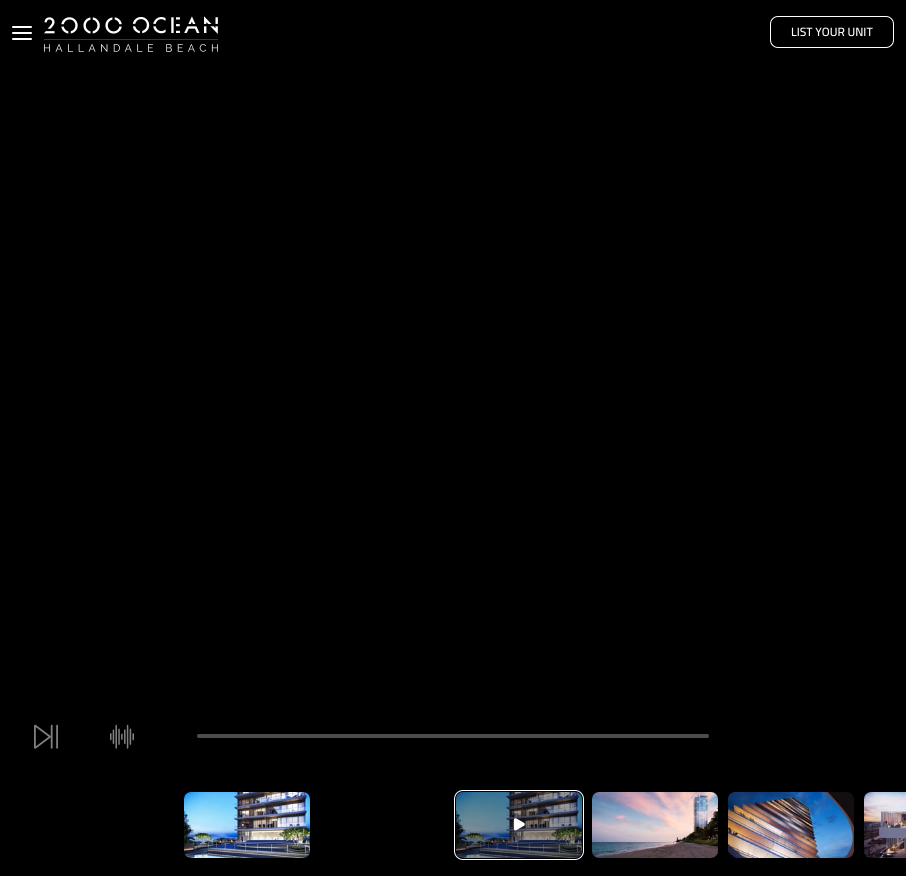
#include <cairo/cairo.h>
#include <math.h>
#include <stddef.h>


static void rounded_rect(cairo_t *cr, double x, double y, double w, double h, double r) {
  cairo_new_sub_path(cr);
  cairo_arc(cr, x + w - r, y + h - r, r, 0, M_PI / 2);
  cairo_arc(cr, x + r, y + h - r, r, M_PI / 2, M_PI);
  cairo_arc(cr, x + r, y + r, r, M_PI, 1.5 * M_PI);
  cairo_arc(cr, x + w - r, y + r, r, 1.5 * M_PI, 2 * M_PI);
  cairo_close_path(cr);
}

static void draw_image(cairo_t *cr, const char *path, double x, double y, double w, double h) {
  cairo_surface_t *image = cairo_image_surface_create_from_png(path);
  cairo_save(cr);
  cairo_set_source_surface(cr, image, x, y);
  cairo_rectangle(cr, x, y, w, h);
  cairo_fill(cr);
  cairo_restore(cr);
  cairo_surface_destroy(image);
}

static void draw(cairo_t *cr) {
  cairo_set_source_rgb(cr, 0, 0, 0);
  cairo_paint(cr);
  cairo_set_source_rgb(cr, 1, 1, 1);
  rounded_rect(cr, 12, 26, 20, 2, 1);
  cairo_fill(cr);
  rounded_rect(cr, 12, 32, 20, 2, 1);
  cairo_fill(cr);
  rounded_rect(cr, 12, 38, 20, 2, 1);
  cairo_fill(cr);
  draw_image(cr, "images/1.png", 44, 16, 174, 36);
  rounded_rect(cr, 770.5, 16.5, 123, 31, 7.5);
  cairo_set_line_width(cr, 1);
  cairo_stroke(cr);
  draw_image(cr, "images/2.png", 34, 724, 24, 25);
  draw_image(cr, "images/3.png", 110, 724, 24, 25);
  cairo_set_source_rgb(cr, 77 / 255.0, 77 / 255.0, 77 / 255.0);
  rounded_rect(cr, 197, 734, 512, 4, 2);
  cairo_fill(cr);
  draw_image(cr, "images/4.png", 184, 792, 126, 66);
  rounded_rect(cr, 454.5, 790.5, 129, 69, 8.5);
  cairo_set_source_rgb(cr, 1, 1, 1);
  cairo_stroke(cr);
  draw_image(cr, "images/5.png", 456, 792, 126, 66);
  cairo_set_source_rgba(cr, 0, 0, 0, 0.4);
  rounded_rect(cr, 456, 792, 126, 66, 7);
  cairo_fill(cr);
  draw_image(cr, "images/6.png", 513, 818, 12, 13);
  draw_image(cr, "images/7.png", 592, 792, 126, 66);
  draw_image(cr, "images/8.png", 728, 792, 126, 66);
  draw_image(cr, "images/9.png", 864, 792, 42, 66);
  cairo_select_font_face(cr, "Cairo SemiBold", CAIRO_FONT_SLANT_NORMAL, CAIRO_FONT_WEIGHT_NORMAL);
  cairo_set_font_size(cr, 12);
  cairo_set_source_rgb(cr, 1, 1, 1);
  cairo_move_to(cr, 791, 36);
  cairo_show_text(cr, "LIST YOUR UNIT");
}

int main(void) {
  cairo_surface_t *surface = cairo_image_surface_create(CAIRO_FORMAT_RGB24, 906, 876);
  cairo_t *cr = cairo_create(surface);
  cairo_font_options_t *options = cairo_font_options_create();
  cairo_font_options_set_hint_metrics(options, CAIRO_HINT_METRICS_OFF);
  cairo_font_options_set_hint_style(options, CAIRO_HINT_STYLE_NONE);
  cairo_set_font_options(cr, options);
  cairo_set_miter_limit(cr, 4);
  draw(cr);
  cairo_surface_write_to_png(surface, "out.png");
  cairo_font_options_destroy(options);
  cairo_destroy(cr);
  cairo_surface_destroy(surface);
  return 0;
}
